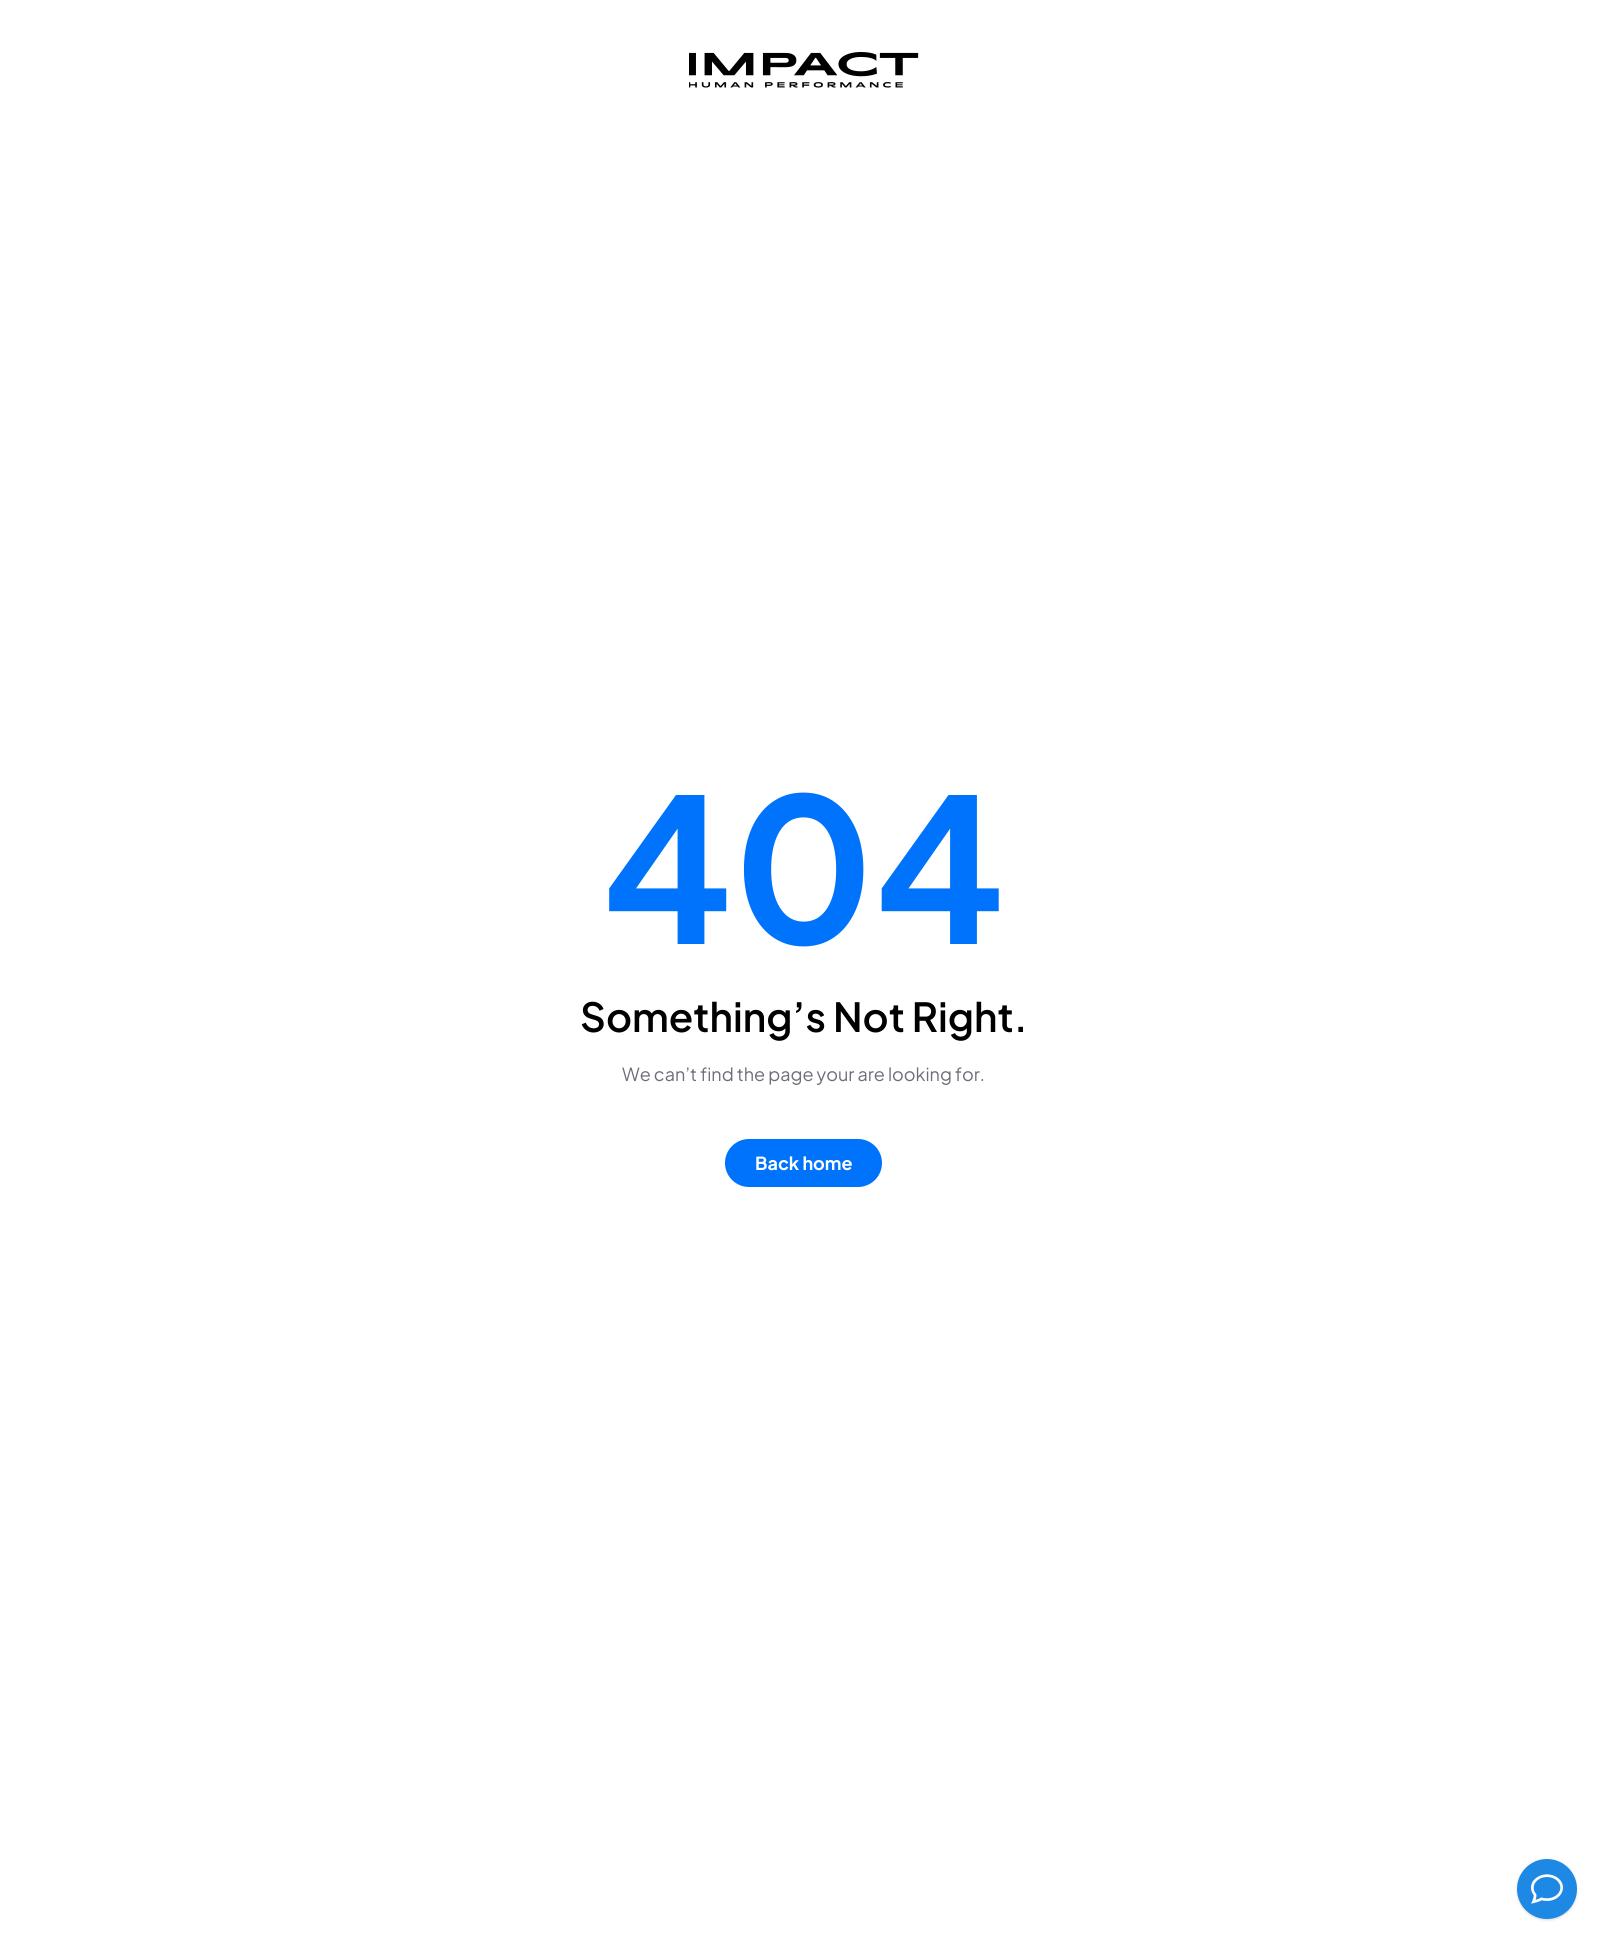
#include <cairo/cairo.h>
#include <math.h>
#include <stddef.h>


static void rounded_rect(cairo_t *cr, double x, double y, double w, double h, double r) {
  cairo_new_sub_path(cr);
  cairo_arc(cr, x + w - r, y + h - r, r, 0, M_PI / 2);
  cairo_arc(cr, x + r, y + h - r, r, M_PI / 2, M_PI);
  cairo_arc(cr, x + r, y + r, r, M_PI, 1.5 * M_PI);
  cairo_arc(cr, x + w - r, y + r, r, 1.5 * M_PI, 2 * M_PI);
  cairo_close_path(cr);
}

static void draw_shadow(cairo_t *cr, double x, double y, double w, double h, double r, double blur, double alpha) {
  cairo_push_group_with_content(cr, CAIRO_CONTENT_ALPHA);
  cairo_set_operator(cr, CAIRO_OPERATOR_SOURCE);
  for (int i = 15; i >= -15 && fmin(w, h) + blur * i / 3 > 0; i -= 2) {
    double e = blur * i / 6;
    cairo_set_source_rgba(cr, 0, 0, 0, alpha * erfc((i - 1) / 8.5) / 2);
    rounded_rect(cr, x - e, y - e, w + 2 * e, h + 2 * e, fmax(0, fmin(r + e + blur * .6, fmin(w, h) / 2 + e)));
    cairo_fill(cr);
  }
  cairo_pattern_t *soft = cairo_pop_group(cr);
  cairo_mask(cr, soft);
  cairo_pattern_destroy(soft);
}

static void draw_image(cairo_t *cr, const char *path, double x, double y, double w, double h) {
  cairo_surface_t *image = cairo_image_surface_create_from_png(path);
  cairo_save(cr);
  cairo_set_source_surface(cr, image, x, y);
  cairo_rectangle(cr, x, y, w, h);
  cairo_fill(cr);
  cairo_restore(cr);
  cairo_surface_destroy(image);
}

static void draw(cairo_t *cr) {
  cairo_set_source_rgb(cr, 1, 1, 1);
  cairo_paint(cr);
  draw_image(cr, "images/1.png", 689, 52, 230, 36);
  cairo_set_source_rgb(cr, 0, 115 / 255.0, 253 / 255.0);
  rounded_rect(cr, 725, 1139, 157, 48, 24);
  cairo_fill(cr);
  cairo_set_source_rgb(cr, 0, 0, 0);
  draw_shadow(cr, 1517, 1860, 60, 60, 30, 1, 0.06);
  draw_shadow(cr, 1517, 1860, 60, 60, 30, 1.5, 0.1);
  cairo_set_source_rgb(cr, 30 / 255.0, 136 / 255.0, 229 / 255.0);
  cairo_arc(cr, 1547, 1889, 30, 0, 2 * M_PI);
  cairo_fill(cr);
  draw_image(cr, "images/2.png", 1531, 1874, 32, 30);
  cairo_select_font_face(cr, "Plus Jakarta Sans", CAIRO_FONT_SLANT_NORMAL, CAIRO_FONT_WEIGHT_BOLD);
  cairo_set_font_size(cr, 200);
  cairo_set_source_rgb(cr, 0, 115 / 255.0, 253 / 255.0);
  cairo_move_to(cr, 602, 944);
  cairo_show_text(cr, "404");
  cairo_select_font_face(cr, "Plus Jakarta Sans SemiBold", CAIRO_FONT_SLANT_NORMAL, CAIRO_FONT_WEIGHT_NORMAL);
  cairo_set_font_size(cr, 40);
  cairo_set_source_rgb(cr, 0, 0, 0);
  cairo_move_to(cr, 580, 1032);
  cairo_show_text(cr, "Something’s Not Right.");
  cairo_select_font_face(cr, "Plus Jakarta Sans", CAIRO_FONT_SLANT_NORMAL, CAIRO_FONT_WEIGHT_NORMAL);
  cairo_set_font_size(cr, 18);
  cairo_set_source_rgb(cr, 108 / 255.0, 110 / 255.0, 121 / 255.0);
  cairo_move_to(cr, 622, 1081);
  cairo_show_text(cr, "We can’t find the page your are looking for.");
  cairo_select_font_face(cr, "Plus Jakarta Sans", CAIRO_FONT_SLANT_NORMAL, CAIRO_FONT_WEIGHT_BOLD);
  cairo_set_source_rgb(cr, 1, 1, 1);
  cairo_move_to(cr, 755, 1170);
  cairo_show_text(cr, "Back home");
}

int main(void) {
  cairo_surface_t *surface = cairo_image_surface_create(CAIRO_FORMAT_RGB24, 1607, 1949);
  cairo_t *cr = cairo_create(surface);
  cairo_font_options_t *options = cairo_font_options_create();
  cairo_font_options_set_hint_metrics(options, CAIRO_HINT_METRICS_OFF);
  cairo_font_options_set_hint_style(options, CAIRO_HINT_STYLE_NONE);
  cairo_set_font_options(cr, options);
  cairo_set_miter_limit(cr, 4);
  draw(cr);
  cairo_surface_write_to_png(surface, "out.png");
  cairo_font_options_destroy(options);
  cairo_destroy(cr);
  cairo_surface_destroy(surface);
  return 0;
}
